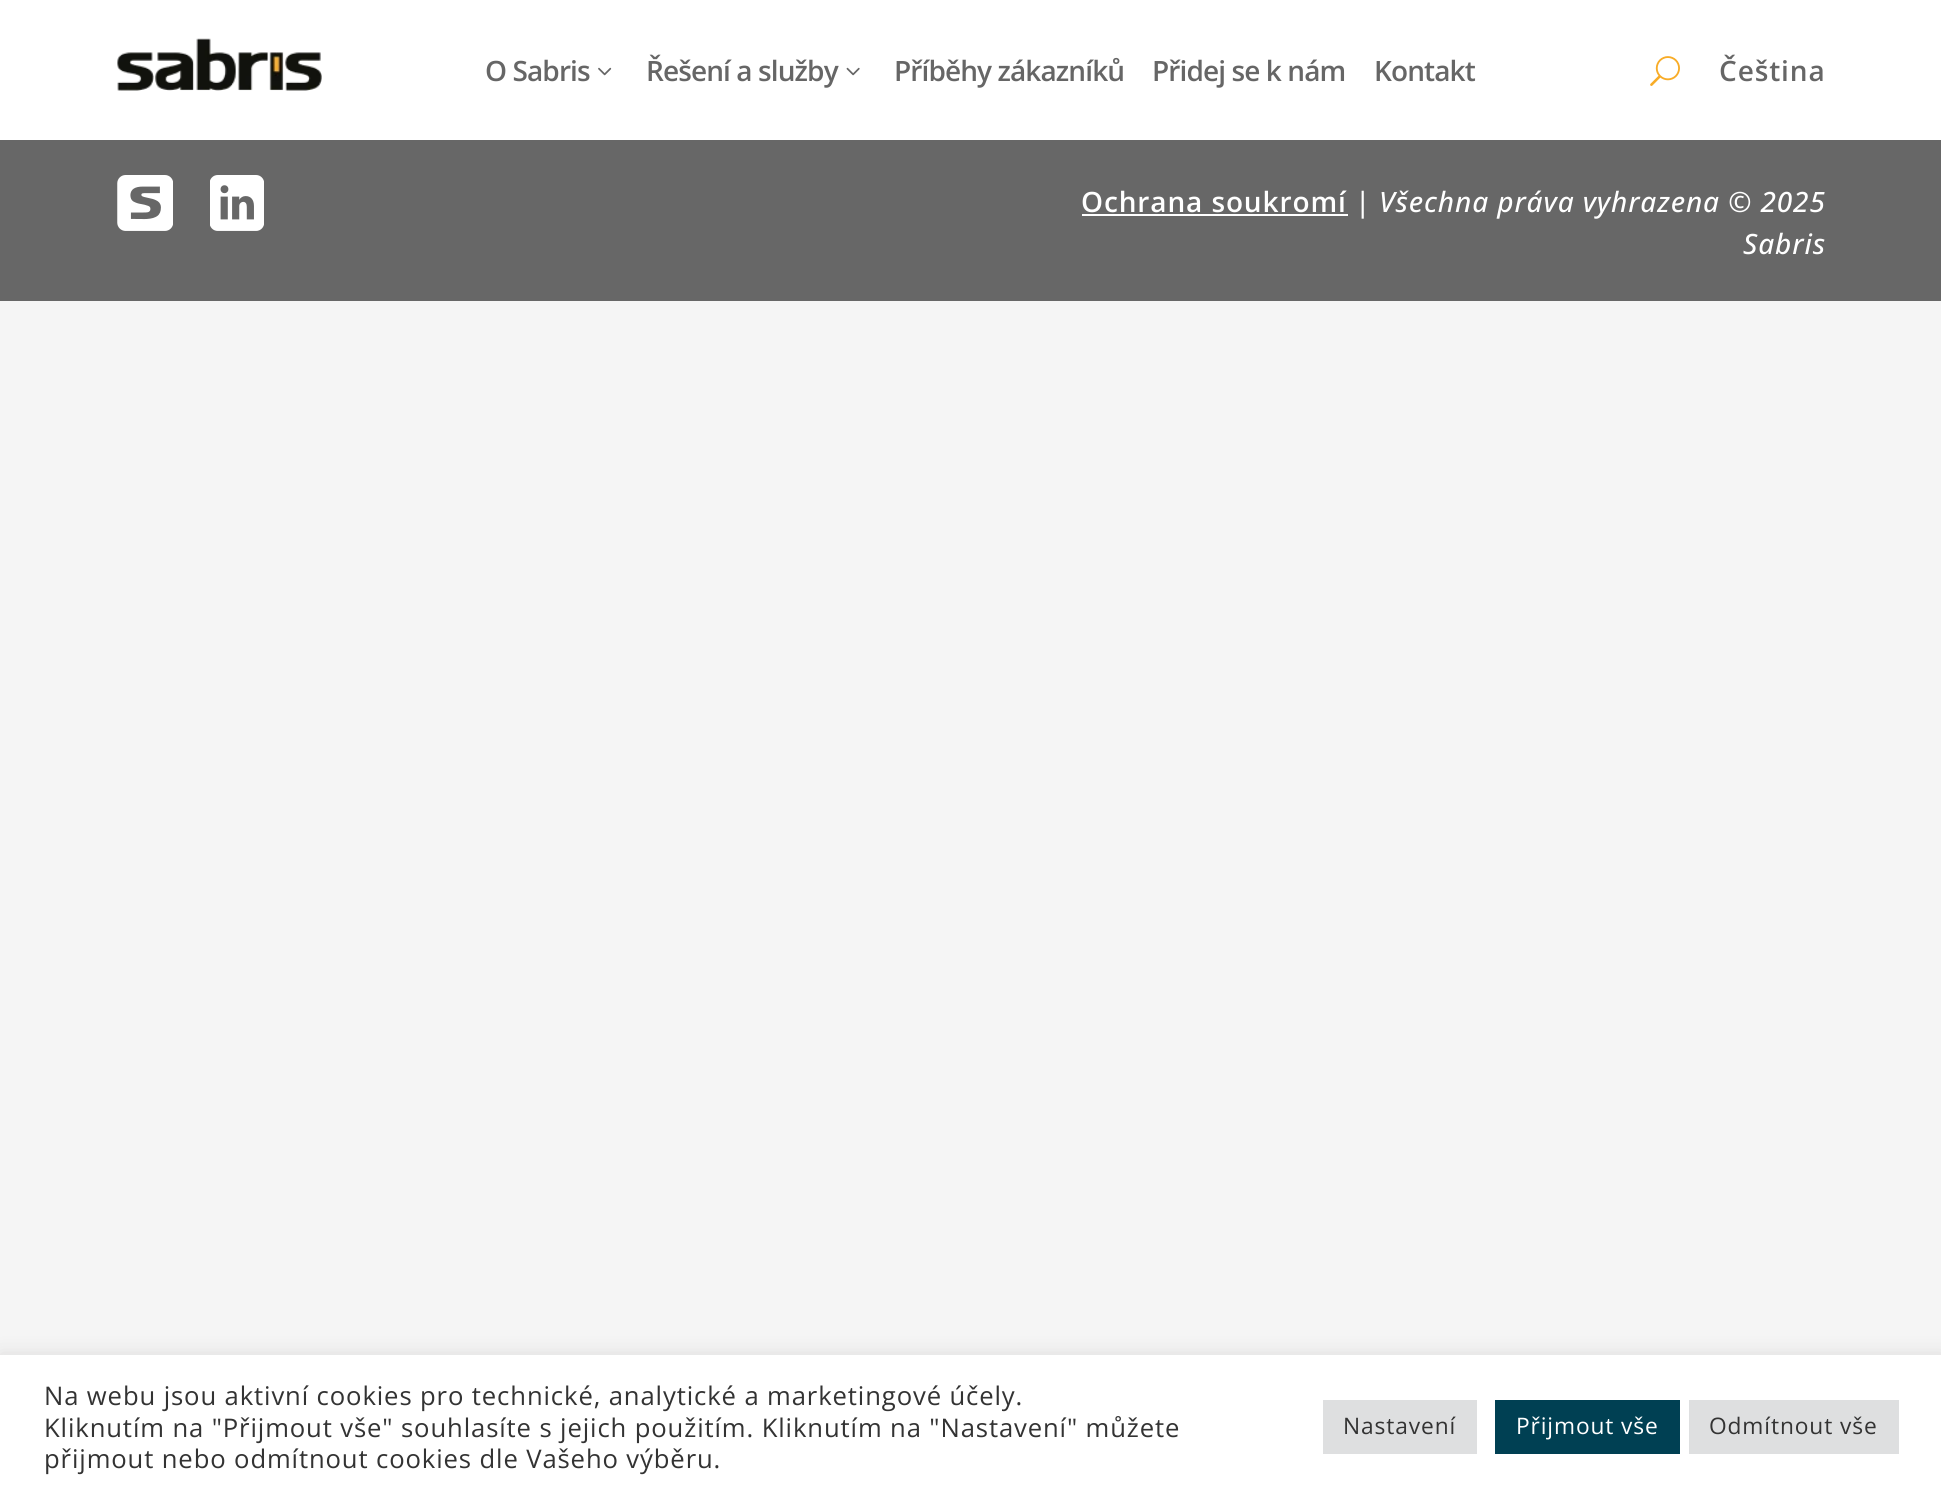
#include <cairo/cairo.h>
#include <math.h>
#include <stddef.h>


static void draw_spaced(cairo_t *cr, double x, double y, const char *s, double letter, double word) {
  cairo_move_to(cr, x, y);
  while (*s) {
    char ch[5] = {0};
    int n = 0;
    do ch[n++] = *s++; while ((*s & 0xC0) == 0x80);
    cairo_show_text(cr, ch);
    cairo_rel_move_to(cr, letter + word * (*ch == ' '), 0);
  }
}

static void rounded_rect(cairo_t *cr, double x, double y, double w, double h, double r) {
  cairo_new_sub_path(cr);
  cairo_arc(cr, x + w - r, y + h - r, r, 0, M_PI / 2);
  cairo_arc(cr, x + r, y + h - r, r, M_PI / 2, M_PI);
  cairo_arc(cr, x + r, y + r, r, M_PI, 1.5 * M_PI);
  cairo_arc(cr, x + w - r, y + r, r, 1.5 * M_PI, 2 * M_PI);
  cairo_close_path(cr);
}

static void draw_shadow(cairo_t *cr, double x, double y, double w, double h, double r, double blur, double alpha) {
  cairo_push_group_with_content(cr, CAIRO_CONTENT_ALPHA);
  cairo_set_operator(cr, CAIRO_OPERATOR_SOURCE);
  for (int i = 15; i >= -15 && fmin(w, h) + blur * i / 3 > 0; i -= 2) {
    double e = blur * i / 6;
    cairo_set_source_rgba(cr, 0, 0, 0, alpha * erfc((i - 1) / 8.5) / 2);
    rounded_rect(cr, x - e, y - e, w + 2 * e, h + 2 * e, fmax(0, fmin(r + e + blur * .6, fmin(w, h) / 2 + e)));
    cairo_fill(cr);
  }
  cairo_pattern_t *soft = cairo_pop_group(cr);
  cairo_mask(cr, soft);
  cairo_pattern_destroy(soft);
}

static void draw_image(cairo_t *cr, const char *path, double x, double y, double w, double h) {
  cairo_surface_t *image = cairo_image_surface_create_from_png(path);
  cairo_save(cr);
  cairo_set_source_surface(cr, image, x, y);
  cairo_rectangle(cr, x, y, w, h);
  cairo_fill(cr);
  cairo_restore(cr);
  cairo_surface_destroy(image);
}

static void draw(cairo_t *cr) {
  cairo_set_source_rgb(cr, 245 / 255.0, 245 / 255.0, 245 / 255.0);
  cairo_paint(cr);
  cairo_set_source_rgb(cr, 1, 1, 1);
  cairo_rectangle(cr, 0, 0, 1941, 140);
  cairo_fill(cr);
  draw_image(cr, "images/1.png", 117, 38, 205, 53);
  draw_image(cr, "images/2.png", 598, 67, 14, 9);
  draw_image(cr, "images/3.png", 846, 67, 14, 9);
  draw_image(cr, "images/4.png", 1650, 56, 30, 30);
  cairo_set_source_rgb(cr, 103 / 255.0, 103 / 255.0, 103 / 255.0);
  cairo_rectangle(cr, 0, 140, 1941, 161);
  cairo_fill(cr);
  draw_image(cr, "images/5.png", 117, 175, 56, 56);
  draw_image(cr, "images/6.png", 210, 175, 54, 56);
  cairo_set_source_rgb(cr, 1, 1, 1);
  cairo_rectangle(cr, 1082, 214, 266, 2);
  cairo_fill(cr);
  cairo_set_source_rgb(cr, 172 / 255.0, 171 / 255.0, 171 / 255.0);
  draw_shadow(cr, 0, 1353, 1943, 143, 0, 9, 0.3);
  cairo_set_source_rgb(cr, 1, 1, 1);
  cairo_rectangle(cr, 0, 1355, 1941, 143);
  cairo_fill(cr);
  cairo_set_source_rgb(cr, 222 / 255.0, 223 / 255.0, 224 / 255.0);
  cairo_rectangle(cr, 1323, 1400, 154, 54);
  cairo_fill(cr);
  cairo_set_source_rgb(cr, 0, 64 / 255.0, 83 / 255.0);
  cairo_rectangle(cr, 1495, 1400, 185, 54);
  cairo_fill(cr);
  cairo_set_source_rgb(cr, 222 / 255.0, 223 / 255.0, 224 / 255.0);
  cairo_rectangle(cr, 1689, 1400, 210, 54);
  cairo_fill(cr);
  cairo_select_font_face(cr, "Open Sans SemiBold", CAIRO_FONT_SLANT_NORMAL, CAIRO_FONT_WEIGHT_NORMAL);
  cairo_set_font_size(cr, 28);
  cairo_set_source_rgb(cr, 102 / 255.0, 102 / 255.0, 102 / 255.0);
  draw_spaced(cr, 485, 81, "O Sabris", -0.9, 0);
  draw_spaced(cr, 646, 81, "Řešení a služby", -0.9, 0);
  draw_spaced(cr, 894, 81, "Příběhy zákazníků", -0.9, 0);
  draw_spaced(cr, 1152, 81, "Přidej se k nám", -0.9, 0);
  draw_spaced(cr, 1374, 81, "Kontakt", -0.9, 0);
  draw_spaced(cr, 1719, 81, "Čeština", 0.88, 0);
  cairo_set_source_rgb(cr, 1, 1, 1);
  draw_spaced(cr, 1081, 212, "Ochrana soukromí", 0.88, 0);
  cairo_select_font_face(cr, "Open Sans Medium", CAIRO_FONT_SLANT_NORMAL, CAIRO_FONT_WEIGHT_NORMAL);
  draw_spaced(cr, 1355, 212, "|", 0.88, 0);
  cairo_select_font_face(cr, "Open Sans Medium", CAIRO_FONT_SLANT_ITALIC, CAIRO_FONT_WEIGHT_NORMAL);
  draw_spaced(cr, 1379, 212, "Všechna práva vyhrazena © 2025", 0.88, 0);
  draw_spaced(cr, 1743, 254, "Sabris", 0.88, 0);
  cairo_select_font_face(cr, "Open Sans", CAIRO_FONT_SLANT_NORMAL, CAIRO_FONT_WEIGHT_NORMAL);
  cairo_set_font_size(cr, 25.65);
  cairo_set_source_rgb(cr, 51 / 255.0, 51 / 255.0, 51 / 255.0);
  draw_spaced(cr, 44, 1405, "Na webu jsou aktivní cookies pro technické, analytické a marketingové účely.", 0.88, 0);
  draw_spaced(cr, 44, 1437, "Kliknutím na \"Přijmout vše\" souhlasíte s jejich použitím. Kliknutím na \"Nastavení\" můžete", 0.88, 0);
  draw_spaced(cr, 44, 1468, "přijmout nebo odmítnout cookies dle Vašeho výběru.", 0.88, 0);
  cairo_set_font_size(cr, 22.75);
  draw_spaced(cr, 1343, 1434, "Nastavení", 0.88, 0);
  cairo_set_source_rgb(cr, 1, 1, 1);
  draw_spaced(cr, 1516, 1434, "Přijmout vše", 0.88, 0);
  cairo_set_source_rgb(cr, 51 / 255.0, 51 / 255.0, 51 / 255.0);
  draw_spaced(cr, 1709, 1434, "Odmítnout vše", 0.88, 0);
}

int main(void) {
  cairo_surface_t *surface = cairo_image_surface_create(CAIRO_FORMAT_RGB24, 1941, 1498);
  cairo_t *cr = cairo_create(surface);
  cairo_font_options_t *options = cairo_font_options_create();
  cairo_font_options_set_hint_metrics(options, CAIRO_HINT_METRICS_OFF);
  cairo_font_options_set_hint_style(options, CAIRO_HINT_STYLE_NONE);
  cairo_set_font_options(cr, options);
  cairo_set_miter_limit(cr, 4);
  draw(cr);
  cairo_surface_write_to_png(surface, "out.png");
  cairo_font_options_destroy(options);
  cairo_destroy(cr);
  cairo_surface_destroy(surface);
  return 0;
}
